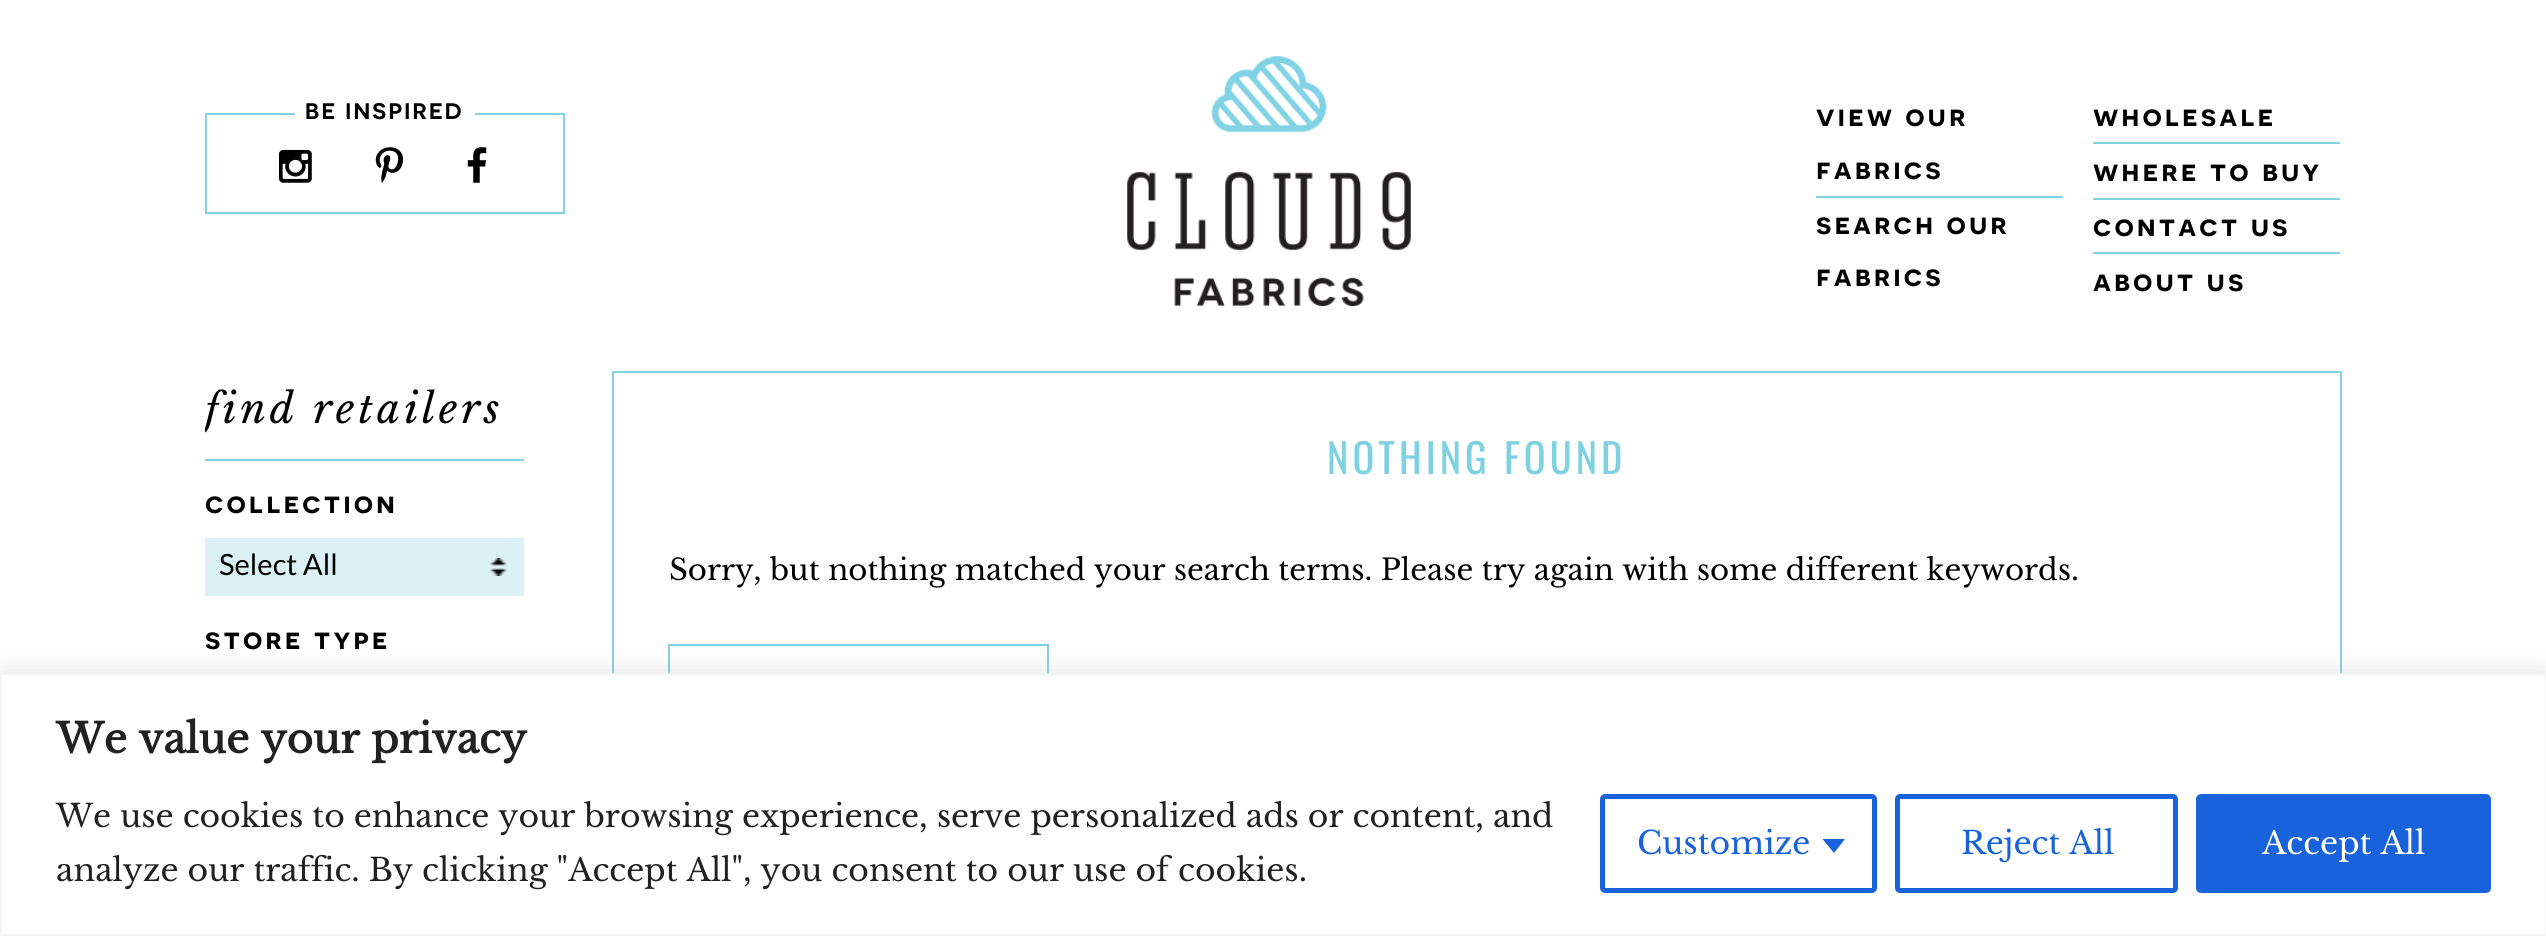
#include <cairo/cairo.h>
#include <math.h>
#include <stddef.h>


static void draw_spaced(cairo_t *cr, double x, double y, const char *s, double letter, double word) {
  cairo_move_to(cr, x, y);
  while (*s) {
    char ch[5] = {0};
    int n = 0;
    do ch[n++] = *s++; while ((*s & 0xC0) == 0x80);
    cairo_show_text(cr, ch);
    cairo_rel_move_to(cr, letter + word * (*ch == ' '), 0);
  }
}

static void rounded_rect(cairo_t *cr, double x, double y, double w, double h, double r) {
  cairo_new_sub_path(cr);
  cairo_arc(cr, x + w - r, y + h - r, r, 0, M_PI / 2);
  cairo_arc(cr, x + r, y + h - r, r, M_PI / 2, M_PI);
  cairo_arc(cr, x + r, y + r, r, M_PI, 1.5 * M_PI);
  cairo_arc(cr, x + w - r, y + r, r, 1.5 * M_PI, 2 * M_PI);
  cairo_close_path(cr);
}

static void draw_shadow(cairo_t *cr, double x, double y, double w, double h, double r, double blur, double alpha) {
  cairo_push_group_with_content(cr, CAIRO_CONTENT_ALPHA);
  cairo_set_operator(cr, CAIRO_OPERATOR_SOURCE);
  for (int i = 15; i >= -15 && fmin(w, h) + blur * i / 3 > 0; i -= 2) {
    double e = blur * i / 6;
    cairo_set_source_rgba(cr, 0, 0, 0, alpha * erfc((i - 1) / 8.5) / 2);
    rounded_rect(cr, x - e, y - e, w + 2 * e, h + 2 * e, fmax(0, fmin(r + e + blur * .6, fmin(w, h) / 2 + e)));
    cairo_fill(cr);
  }
  cairo_pattern_t *soft = cairo_pop_group(cr);
  cairo_mask(cr, soft);
  cairo_pattern_destroy(soft);
}

static void draw_image(cairo_t *cr, const char *path, double x, double y, double w, double h) {
  cairo_surface_t *image = cairo_image_surface_create_from_png(path);
  cairo_save(cr);
  cairo_set_source_surface(cr, image, x, y);
  cairo_rectangle(cr, x, y, w, h);
  cairo_fill(cr);
  cairo_restore(cr);
  cairo_surface_destroy(image);
}

static void draw(cairo_t *cr) {
  cairo_set_source_rgb(cr, 1, 1, 1);
  cairo_paint(cr);
  cairo_rectangle(cr, 206, 114, 358, 99);
  cairo_set_source_rgb(cr, 131 / 255.0, 209 / 255.0, 229 / 255.0);
  cairo_stroke(cr);
  cairo_set_source_rgb(cr, 1, 1, 1);
  cairo_rectangle(cr, 295, 113, 180, 2);
  cairo_fill(cr);
  draw_image(cr, "images/1.png", 279, 149, 33, 34);
  draw_image(cr, "images/2.png", 375, 147, 29, 36);
  draw_image(cr, "images/3.png", 467, 147, 20, 36);
  draw_image(cr, "images/4.png", 1127, 56, 284, 250);
  cairo_set_source_rgb(cr, 131 / 255.0, 209 / 255.0, 229 / 255.0);
  cairo_rectangle(cr, 1816, 196, 247, 2);
  cairo_fill(cr);
  cairo_rectangle(cr, 2093, 142, 247, 2);
  cairo_fill(cr);
  cairo_rectangle(cr, 2093, 198, 247, 2);
  cairo_fill(cr);
  cairo_rectangle(cr, 2093, 252, 247, 2);
  cairo_fill(cr);
  cairo_rectangle(cr, 205, 459, 319, 2);
  cairo_fill(cr);
  cairo_set_source_rgb(cr, 220 / 255.0, 241 / 255.0, 246 / 255.0);
  cairo_rectangle(cr, 205, 538, 319, 58);
  cairo_fill(cr);
  draw_image(cr, "images/5.png", 490, 558, 17, 18);
  cairo_rectangle(cr, 613, 372, 1728, 390);
  cairo_set_source_rgb(cr, 131 / 255.0, 209 / 255.0, 229 / 255.0);
  cairo_stroke(cr);
  cairo_rectangle(cr, 669, 645, 379, 58);
  cairo_set_source_rgb(cr, 125 / 255.0, 209 / 255.0, 225 / 255.0);
  cairo_stroke(cr);
  cairo_set_source_rgb(cr, 172 / 255.0, 171 / 255.0, 171 / 255.0);
  draw_shadow(cr, 0, 671, 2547, 263, 0, 11, 0.3);
  cairo_set_source_rgb(cr, 1, 1, 1);
  cairo_rectangle(cr, 1, 674, 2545, 261);
  cairo_fill_preserve(cr);
  cairo_set_source_rgb(cr, 244 / 255.0, 244 / 255.0, 244 / 255.0);
  cairo_stroke(cr);
  rounded_rect(cr, 1602.5, 796.5, 272, 94, 2.5);
  cairo_set_source_rgb(cr, 24 / 255.0, 99 / 255.0, 220 / 255.0);
  cairo_set_line_width(cr, 5);
  cairo_stroke(cr);
  cairo_new_path(cr);
  cairo_move_to(cr, 1822.5, 839);
  cairo_line_to(cr, 1845, 839);
  cairo_line_to(cr, 1834, 853);
  cairo_close_path(cr);
  cairo_fill(cr);
  rounded_rect(cr, 1897.5, 796.5, 278, 94, 2.5);
  cairo_stroke(cr);
  rounded_rect(cr, 2198.5, 796.5, 290, 94, 2.5);
  cairo_fill_preserve(cr);
  cairo_stroke(cr);
  cairo_select_font_face(cr, "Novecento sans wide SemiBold", CAIRO_FONT_SLANT_NORMAL, CAIRO_FONT_WEIGHT_NORMAL);
  cairo_set_font_size(cr, 22.5);
  cairo_set_source_rgb(cr, 0, 0, 0);
  draw_spaced(cr, 305, 119, "BE INSPIRED", 2.25, 0);
  cairo_set_font_size(cr, 29.25);
  draw_spaced(cr, 1816, 126, "view our", 3, 0);
  draw_spaced(cr, 1816, 179, "fabrics", 3, 0);
  draw_spaced(cr, 1816, 234, "search our", 3, 0);
  draw_spaced(cr, 1816, 286, "fabrics", 3, 0);
  draw_spaced(cr, 2093, 126, "wholesale", 3, 0);
  draw_spaced(cr, 2093, 181, "where to buy", 3, 0);
  draw_spaced(cr, 2093, 236, "contact us", 3, 0);
  draw_spaced(cr, 2093, 291, "about us", 3, 0);
  cairo_save(cr);
  cairo_rectangle(cr, 205, 371, 407, 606);
  cairo_clip(cr);
  cairo_select_font_face(cr, "Libre Baskerville", CAIRO_FONT_SLANT_ITALIC, CAIRO_FONT_WEIGHT_NORMAL);
  cairo_set_font_size(cr, 40.5);
  draw_spaced(cr, 205, 423, "find retailers", 4, 0);
  cairo_restore(cr);
  draw_spaced(cr, 205, 513, "collection", 3, 0);
  cairo_select_font_face(cr, "Lato", CAIRO_FONT_SLANT_NORMAL, CAIRO_FONT_WEIGHT_NORMAL);
  cairo_move_to(cr, 219, 575);
  cairo_show_text(cr, "Select All");
  cairo_select_font_face(cr, "Novecento sans wide SemiBold", CAIRO_FONT_SLANT_NORMAL, CAIRO_FONT_WEIGHT_NORMAL);
  draw_spaced(cr, 205, 649, "store type", 3, 0);
  cairo_select_font_face(cr, "Oswald", CAIRO_FONT_SLANT_NORMAL, CAIRO_FONT_WEIGHT_NORMAL);
  cairo_set_font_size(cr, 40.5);
  cairo_set_source_rgb(cr, 125 / 255.0, 209 / 255.0, 225 / 255.0);
  draw_spaced(cr, 1327, 474, "NOTHING FOUND", 4, 0);
  cairo_select_font_face(cr, "Libre Baskerville", CAIRO_FONT_SLANT_NORMAL, CAIRO_FONT_WEIGHT_NORMAL);
  cairo_set_font_size(cr, 29.25);
  cairo_set_source_rgb(cr, 0, 0, 0);
  cairo_move_to(cr, 669, 580);
  cairo_show_text(cr, "Sorry, but nothing matched your search terms. Please try again with some different keywords.");
  cairo_select_font_face(cr, "Libre Baskerville", CAIRO_FONT_SLANT_NORMAL, CAIRO_FONT_WEIGHT_BOLD);
  cairo_set_font_size(cr, 40.5);
  cairo_set_source_rgb(cr, 33 / 255.0, 33 / 255.0, 33 / 255.0);
  cairo_move_to(cr, 56, 753);
  cairo_show_text(cr, "We value your privacy");
  cairo_select_font_face(cr, "Libre Baskerville", CAIRO_FONT_SLANT_NORMAL, CAIRO_FONT_WEIGHT_NORMAL);
  cairo_set_font_size(cr, 31.5);
  cairo_move_to(cr, 56, 827);
  cairo_show_text(cr, "We use cookies to enhance your browsing experience, serve personalized ads or content, and");
  cairo_move_to(cr, 56, 881);
  cairo_show_text(cr, "analyze our traffic. By clicking \"Accept All\", you consent to our use of cookies.");
  cairo_set_source_rgb(cr, 24 / 255.0, 99 / 255.0, 220 / 255.0);
  cairo_move_to(cr, 1637, 854);
  cairo_show_text(cr, "Customize");
  cairo_move_to(cr, 1961, 854);
  cairo_show_text(cr, "Reject All");
  cairo_set_source_rgb(cr, 1, 1, 1);
  cairo_move_to(cr, 2262, 854);
  cairo_show_text(cr, "Accept All");
}

int main(void) {
  cairo_surface_t *surface = cairo_image_surface_create(CAIRO_FORMAT_RGB24, 2546, 936);
  cairo_t *cr = cairo_create(surface);
  cairo_font_options_t *options = cairo_font_options_create();
  cairo_font_options_set_hint_metrics(options, CAIRO_HINT_METRICS_OFF);
  cairo_font_options_set_hint_style(options, CAIRO_HINT_STYLE_NONE);
  cairo_set_font_options(cr, options);
  cairo_set_miter_limit(cr, 4);
  draw(cr);
  cairo_surface_write_to_png(surface, "out.png");
  cairo_font_options_destroy(options);
  cairo_destroy(cr);
  cairo_surface_destroy(surface);
  return 0;
}
